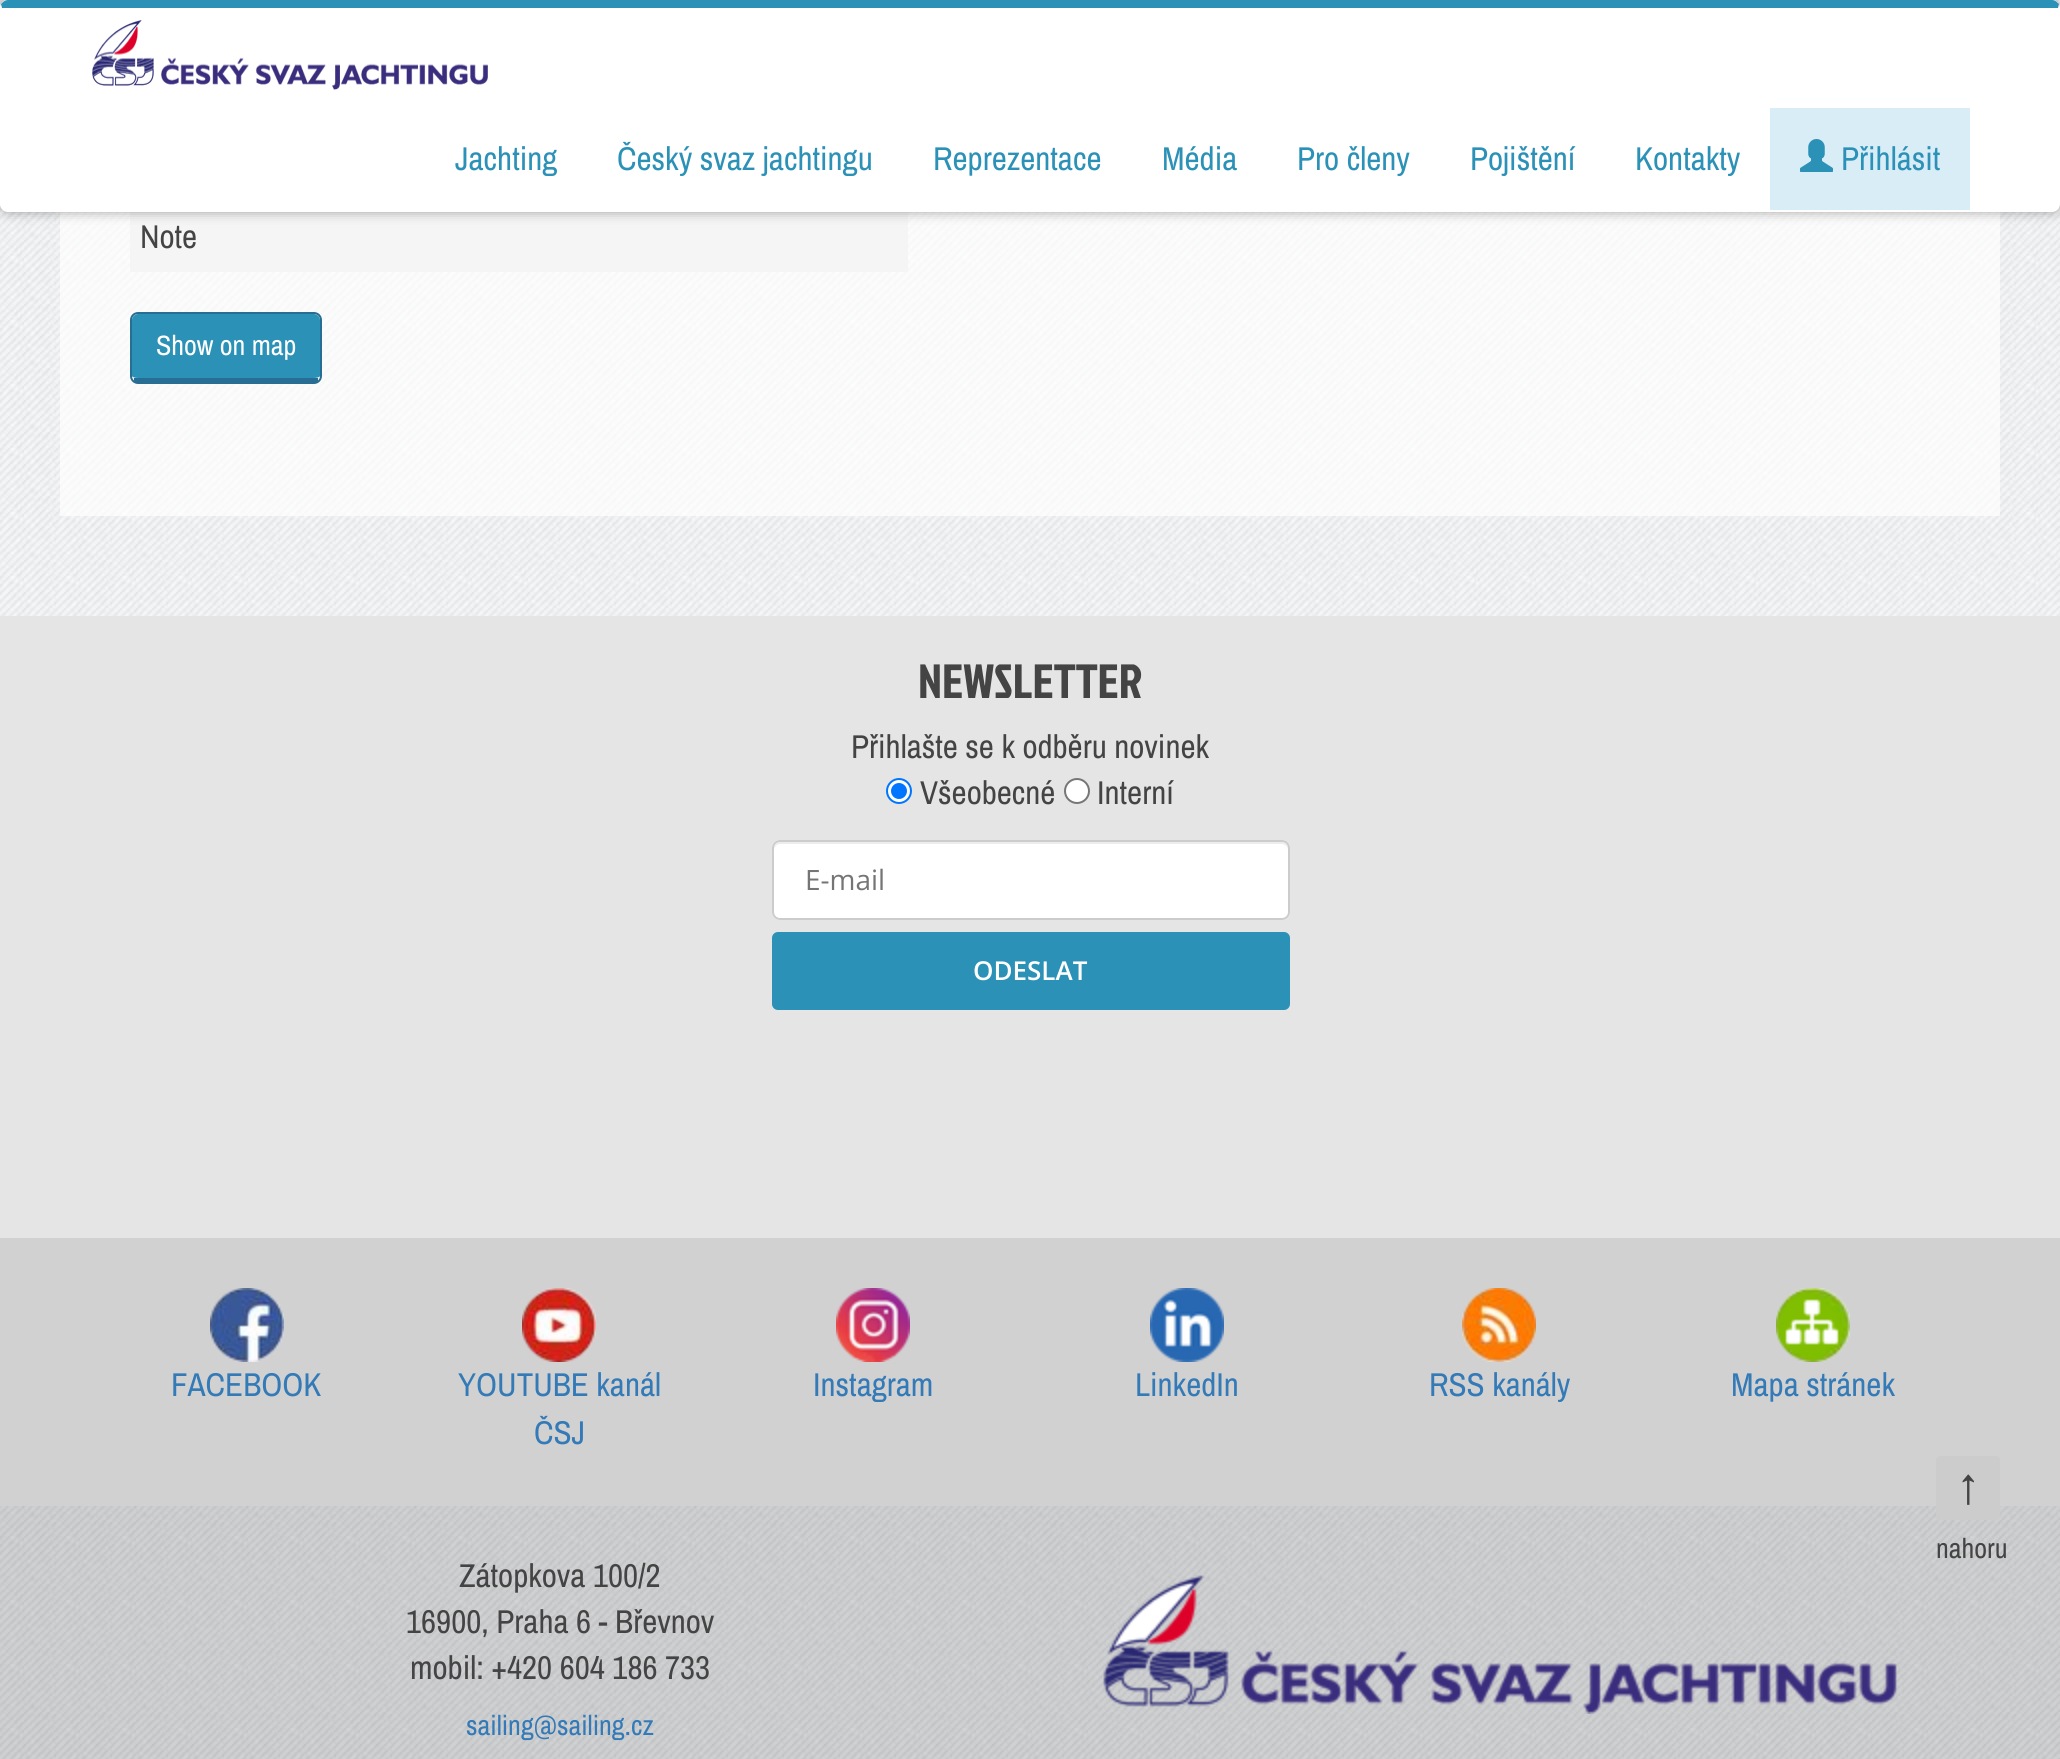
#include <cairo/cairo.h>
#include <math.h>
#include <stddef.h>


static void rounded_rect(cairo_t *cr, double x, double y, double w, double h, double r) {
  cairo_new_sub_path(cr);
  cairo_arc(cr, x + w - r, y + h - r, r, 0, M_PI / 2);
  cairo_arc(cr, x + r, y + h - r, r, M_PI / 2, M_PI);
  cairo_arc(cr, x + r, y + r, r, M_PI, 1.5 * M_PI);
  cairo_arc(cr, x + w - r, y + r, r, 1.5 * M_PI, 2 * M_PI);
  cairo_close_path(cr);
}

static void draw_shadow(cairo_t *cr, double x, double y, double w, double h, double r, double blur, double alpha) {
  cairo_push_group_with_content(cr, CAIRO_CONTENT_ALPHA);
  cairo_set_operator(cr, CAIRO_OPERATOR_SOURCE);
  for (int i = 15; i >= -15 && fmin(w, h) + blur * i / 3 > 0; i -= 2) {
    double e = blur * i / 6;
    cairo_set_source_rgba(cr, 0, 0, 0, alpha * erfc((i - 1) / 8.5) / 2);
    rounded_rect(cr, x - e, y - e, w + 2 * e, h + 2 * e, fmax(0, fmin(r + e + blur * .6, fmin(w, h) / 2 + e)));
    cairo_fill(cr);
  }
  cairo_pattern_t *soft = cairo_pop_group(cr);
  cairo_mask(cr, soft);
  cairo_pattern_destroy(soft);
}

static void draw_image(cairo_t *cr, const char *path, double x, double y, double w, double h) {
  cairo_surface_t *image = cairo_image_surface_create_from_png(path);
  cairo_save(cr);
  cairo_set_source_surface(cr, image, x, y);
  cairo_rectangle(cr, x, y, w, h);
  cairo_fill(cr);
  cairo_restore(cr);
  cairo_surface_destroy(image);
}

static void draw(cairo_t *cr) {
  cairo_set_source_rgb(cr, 1, 1, 1);
  cairo_paint(cr);
  draw_image(cr, "images/1.png", 0, 0, 2060, 1759);
  cairo_set_source_rgba(cr, 1, 1, 1, 0.7);
  cairo_rectangle(cr, 60, 212, 1940, 304);
  cairo_fill(cr);
  cairo_set_source_rgb(cr, 245 / 255.0, 245 / 255.0, 245 / 255.0);
  cairo_rectangle(cr, 130, 212, 778, 60);
  cairo_fill(cr);
  cairo_set_source_rgb(cr, 0, 0, 0);
  draw_shadow(cr, 0, 0, 2060, 212, 8, 6, 0.35);
  cairo_set_source_rgb(cr, 1, 1, 1);
  rounded_rect(cr, 0, 0, 2060, 212, 8);
  cairo_fill(cr);
  cairo_set_source_rgb(cr, 44 / 255.0, 145 / 255.0, 183 / 255.0);
  cairo_new_path(cr);
  cairo_move_to(cr, 8, 0);
  cairo_curve_to(cr, 5, 0, 3, 2, 1, 4);
  cairo_line_to(cr, 2, 8);
  cairo_line_to(cr, 2058, 8);
  cairo_line_to(cr, 2059, 4);
  cairo_curve_to(cr, 2057, 2, 2055, 0, 2052, 0);
  cairo_close_path(cr);
  cairo_fill(cr);
  draw_image(cr, "images/2.png", 92, 20, 396, 70);
  cairo_set_source_rgb(cr, 217 / 255.0, 237 / 255.0, 247 / 255.0);
  cairo_rectangle(cr, 1770, 108, 200, 102);
  cairo_fill(cr);
  draw_image(cr, "images/3.png", 1800, 139, 33, 33);
  cairo_set_source_rgb(cr, 44 / 255.0, 145 / 255.0, 183 / 255.0);
  cairo_new_path(cr);
  cairo_move_to(cr, 138, 314);
  cairo_line_to(cr, 314, 314);
  cairo_curve_to(cr, 317, 314, 320, 317, 320, 320);
  cairo_line_to(cr, 320, 376);
  cairo_curve_to(cr, 320, 377, 317, 378, 314, 378);
  cairo_line_to(cr, 138, 378);
  cairo_curve_to(cr, 135, 378, 132, 377, 132, 376);
  cairo_line_to(cr, 132, 320);
  cairo_curve_to(cr, 132, 317, 135, 314, 138, 314);
  cairo_close_path(cr);
  cairo_fill(cr);
  rounded_rect(cr, 131, 313, 190, 70, 7);
  cairo_set_source_rgb(cr, 40 / 255.0, 109 / 255.0, 147 / 255.0);
  cairo_stroke(cr);
  cairo_rectangle(cr, 134, 378, 184, 4);
  cairo_fill(cr);
  cairo_set_source_rgba(cr, 0, 0, 0, 0.15);
  cairo_rectangle(cr, 0, 1506, 2060, 253);
  cairo_fill(cr);
  cairo_set_source_rgb(cr, 229 / 255.0, 229 / 255.0, 229 / 255.0);
  cairo_rectangle(cr, 0, 616, 2060, 622);
  cairo_fill(cr);
  cairo_set_source_rgb(cr, 1, 1, 1);
  cairo_arc(cr, 899, 791, 12, 0, 2 * M_PI);
  cairo_fill_preserve(cr);
  cairo_set_source_rgb(cr, 0, 117 / 255.0, 1);
  cairo_stroke(cr);
  cairo_arc(cr, 899, 791, 8, 0, 2 * M_PI);
  cairo_fill(cr);
  cairo_set_source_rgb(cr, 1, 1, 1);
  cairo_arc(cr, 1077, 791, 12, 0, 2 * M_PI);
  cairo_fill_preserve(cr);
  cairo_set_source_rgb(cr, 118 / 255.0, 118 / 255.0, 118 / 255.0);
  cairo_stroke(cr);
  cairo_set_source_rgb(cr, 1, 1, 1);
  rounded_rect(cr, 772, 840, 518, 80, 8);
  cairo_fill(cr);
  cairo_set_source_rgb(cr, 236 / 255.0, 236 / 255.0, 236 / 255.0);
  cairo_new_path(cr);
  cairo_move_to(cr, 780, 844);
  cairo_line_to(cr, 1282, 844);
  cairo_curve_to(cr, 1285, 844, 1288, 847, 1288, 850);
  cairo_line_to(cr, 1288, 848);
  cairo_curve_to(cr, 1288, 845, 1285, 842, 1282, 842);
  cairo_line_to(cr, 780, 842);
  cairo_curve_to(cr, 777, 842, 774, 845, 774, 848);
  cairo_line_to(cr, 774, 850);
  cairo_curve_to(cr, 774, 847, 777, 844, 780, 844);
  cairo_close_path(cr);
  cairo_fill(cr);
  rounded_rect(cr, 773, 841, 516, 78, 7);
  cairo_set_source_rgb(cr, 204 / 255.0, 204 / 255.0, 204 / 255.0);
  cairo_stroke(cr);
  cairo_set_source_rgb(cr, 44 / 255.0, 145 / 255.0, 183 / 255.0);
  rounded_rect(cr, 772, 932, 518, 78, 6);
  cairo_fill(cr);
  cairo_set_source_rgb(cr, 209 / 255.0, 209 / 255.0, 210 / 255.0);
  cairo_rectangle(cr, 0, 1238, 2060, 268);
  cairo_fill(cr);
  draw_image(cr, "images/4.png", 210, 1288, 74, 74);
  draw_image(cr, "images/5.png", 522, 1288, 74, 74);
  draw_image(cr, "images/6.png", 836, 1288, 74, 74);
  draw_image(cr, "images/7.png", 1150, 1288, 74, 74);
  draw_image(cr, "images/8.png", 1462, 1288, 74, 74);
  draw_image(cr, "images/9.png", 1776, 1288, 74, 74);
  draw_image(cr, "images/10.png", 1103, 1575, 794, 139);
  cairo_set_source_rgb(cr, 204 / 255.0, 204 / 255.0, 204 / 255.0);
  rounded_rect(cr, 1936, 1456, 64, 64, 4);
  cairo_fill(cr);
  cairo_select_font_face(cr, "Archivo Narrow", CAIRO_FONT_SLANT_NORMAL, CAIRO_FONT_WEIGHT_NORMAL);
  cairo_set_font_size(cr, 33);
  cairo_set_source_rgb(cr, 44 / 255.0, 145 / 255.0, 183 / 255.0);
  cairo_move_to(cr, 455, 170);
  cairo_show_text(cr, "Jachting");
  cairo_move_to(cr, 617, 170);
  cairo_show_text(cr, "Český svaz jachtingu");
  cairo_move_to(cr, 933, 170);
  cairo_show_text(cr, "Reprezentace");
  cairo_move_to(cr, 1162, 170);
  cairo_show_text(cr, "Média");
  cairo_move_to(cr, 1297, 170);
  cairo_show_text(cr, "Pro členy");
  cairo_move_to(cr, 1470, 170);
  cairo_show_text(cr, "Pojištění");
  cairo_move_to(cr, 1635, 170);
  cairo_show_text(cr, "Kontakty");
  cairo_move_to(cr, 1841, 170);
  cairo_show_text(cr, "Přihlásit");
  cairo_set_source_rgb(cr, 68 / 255.0, 68 / 255.0, 68 / 255.0);
  cairo_move_to(cr, 140, 248);
  cairo_show_text(cr, "Note");
  cairo_set_font_size(cr, 28);
  cairo_set_source_rgb(cr, 1, 1, 1);
  cairo_move_to(cr, 156, 355);
  cairo_show_text(cr, "Show on map");
  cairo_select_font_face(cr, "Jockey One", CAIRO_FONT_SLANT_NORMAL, CAIRO_FONT_WEIGHT_NORMAL);
  cairo_set_font_size(cr, 48);
  cairo_set_source_rgb(cr, 68 / 255.0, 68 / 255.0, 68 / 255.0);
  cairo_move_to(cr, 918, 698);
  cairo_show_text(cr, "NEWSLETTER");
  cairo_select_font_face(cr, "Archivo Narrow", CAIRO_FONT_SLANT_NORMAL, CAIRO_FONT_WEIGHT_NORMAL);
  cairo_set_font_size(cr, 33);
  cairo_move_to(cr, 851, 758);
  cairo_show_text(cr, "Přihlašte se k odběru novinek");
  cairo_move_to(cr, 920, 804);
  cairo_show_text(cr, "Všeobecné");
  cairo_move_to(cr, 1097, 804);
  cairo_show_text(cr, "Interní");
  cairo_select_font_face(cr, "Open Sans", CAIRO_FONT_SLANT_NORMAL, CAIRO_FONT_WEIGHT_NORMAL);
  cairo_set_font_size(cr, 28);
  cairo_set_source_rgb(cr, 117 / 255.0, 117 / 255.0, 117 / 255.0);
  cairo_move_to(cr, 805, 890);
  cairo_show_text(cr, "E-mail");
  cairo_select_font_face(cr, "Open Sans SemiBold", CAIRO_FONT_SLANT_NORMAL, CAIRO_FONT_WEIGHT_NORMAL);
  cairo_set_font_size(cr, 26);
  cairo_set_source_rgb(cr, 1, 1, 1);
  cairo_move_to(cr, 973, 980);
  cairo_show_text(cr, "ODESLAT");
  cairo_select_font_face(cr, "Archivo Narrow", CAIRO_FONT_SLANT_NORMAL, CAIRO_FONT_WEIGHT_NORMAL);
  cairo_set_font_size(cr, 33);
  cairo_set_source_rgb(cr, 51 / 255.0, 122 / 255.0, 183 / 255.0);
  cairo_move_to(cr, 171, 1396);
  cairo_show_text(cr, "FACEBOOK");
  cairo_move_to(cr, 458, 1396);
  cairo_show_text(cr, "YOUTUBE kanál");
  cairo_move_to(cr, 534, 1444);
  cairo_show_text(cr, "ČSJ");
  cairo_move_to(cr, 813, 1396);
  cairo_show_text(cr, "Instagram");
  cairo_move_to(cr, 1135, 1396);
  cairo_show_text(cr, "LinkedIn");
  cairo_move_to(cr, 1429, 1396);
  cairo_show_text(cr, "RSS kanály");
  cairo_move_to(cr, 1731, 1396);
  cairo_show_text(cr, "Mapa stránek");
  cairo_set_source_rgb(cr, 68 / 255.0, 68 / 255.0, 68 / 255.0);
  cairo_move_to(cr, 459, 1587);
  cairo_show_text(cr, "Zátopkova 100/2");
  cairo_move_to(cr, 406, 1633);
  cairo_show_text(cr, "16900, Praha 6 - Břevnov");
  cairo_move_to(cr, 410, 1679);
  cairo_show_text(cr, "mobil: +420 604 186 733");
  cairo_set_font_size(cr, 28);
  cairo_set_source_rgb(cr, 51 / 255.0, 122 / 255.0, 183 / 255.0);
  cairo_move_to(cr, 466, 1735);
  cairo_show_text(cr, "sailing@sailing.cz");
  cairo_set_font_size(cr, 33);
  cairo_set_source_rgb(cr, 68 / 255.0, 68 / 255.0, 68 / 255.0);
  cairo_move_to(cr, 1960, 1498);
  cairo_show_text(cr, "↑");
  cairo_set_font_size(cr, 28);
  cairo_move_to(cr, 1936, 1558);
  cairo_show_text(cr, "nahoru");
}

int main(void) {
  cairo_surface_t *surface = cairo_image_surface_create(CAIRO_FORMAT_RGB24, 2060, 1759);
  cairo_t *cr = cairo_create(surface);
  cairo_font_options_t *options = cairo_font_options_create();
  cairo_font_options_set_hint_metrics(options, CAIRO_HINT_METRICS_OFF);
  cairo_font_options_set_hint_style(options, CAIRO_HINT_STYLE_NONE);
  cairo_set_font_options(cr, options);
  cairo_set_miter_limit(cr, 4);
  draw(cr);
  cairo_surface_write_to_png(surface, "out.png");
  cairo_font_options_destroy(options);
  cairo_destroy(cr);
  cairo_surface_destroy(surface);
  return 0;
}
